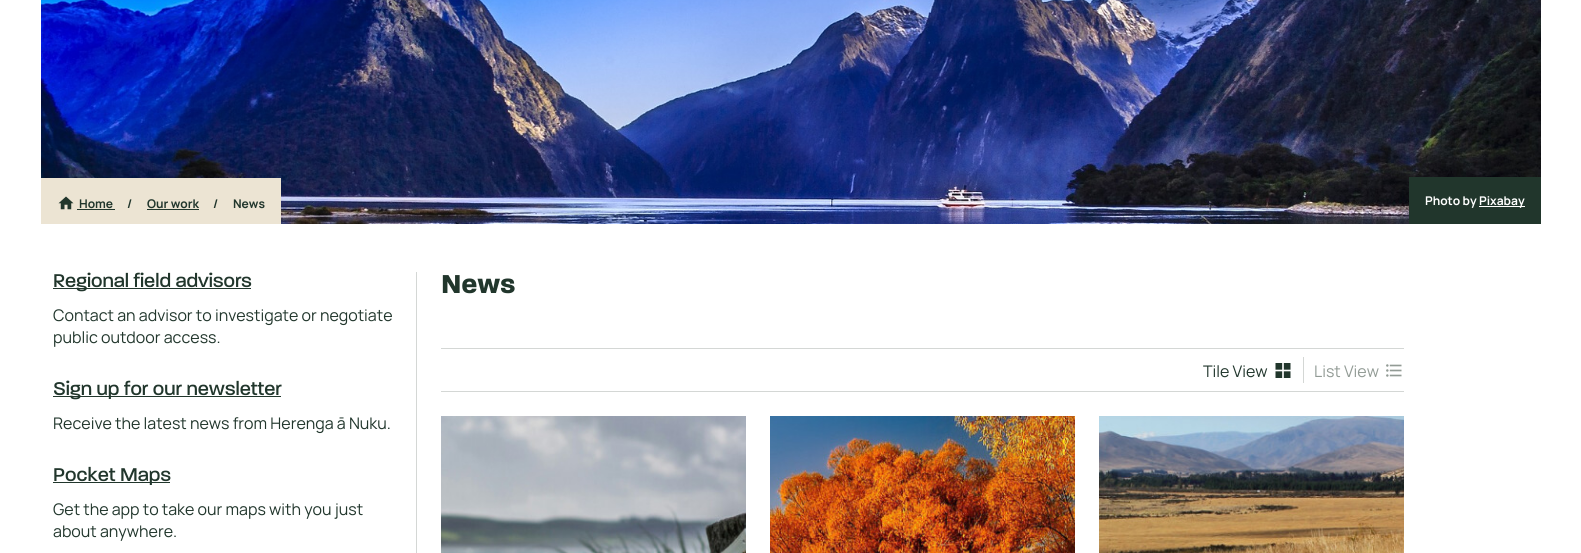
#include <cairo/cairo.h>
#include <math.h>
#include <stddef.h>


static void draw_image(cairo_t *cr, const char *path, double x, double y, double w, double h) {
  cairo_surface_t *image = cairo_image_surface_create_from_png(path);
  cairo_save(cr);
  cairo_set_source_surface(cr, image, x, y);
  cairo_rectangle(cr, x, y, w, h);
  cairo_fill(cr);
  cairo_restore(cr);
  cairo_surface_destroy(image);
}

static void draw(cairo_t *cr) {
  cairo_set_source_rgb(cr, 1, 1, 1);
  cairo_paint(cr);
  draw_image(cr, "images/2.png", 41, 0, 1500, 224);
  cairo_set_source_rgb(cr, 236 / 255.0, 228 / 255.0, 211 / 255.0);
  cairo_rectangle(cr, 41, 178, 240, 46);
  cairo_fill(cr);
  draw_image(cr, "images/1.png", 58, 196, 16, 14);
  cairo_set_source_rgb(cr, 33 / 255.0, 54 / 255.0, 44 / 255.0);
  cairo_rectangle(cr, 77, 209, 38, 1);
  cairo_fill(cr);
  cairo_rectangle(cr, 147, 209, 52, 1);
  cairo_fill(cr);
  cairo_rectangle(cr, 1409, 177, 132, 47);
  cairo_fill(cr);
  cairo_set_source_rgb(cr, 1, 1, 1);
  cairo_rectangle(cr, 1479, 206, 46, 1);
  cairo_fill(cr);
  cairo_set_source_rgb(cr, 33 / 255.0, 54 / 255.0, 44 / 255.0);
  cairo_rectangle(cr, 53, 288, 198, 1);
  cairo_fill(cr);
  cairo_rectangle(cr, 53, 396, 228, 1);
  cairo_fill(cr);
  cairo_rectangle(cr, 53, 482, 117, 1);
  cairo_fill(cr);
  cairo_set_source_rgb(cr, 212 / 255.0, 215 / 255.0, 213 / 255.0);
  cairo_rectangle(cr, 416, 272, 1, 281);
  cairo_fill(cr);
  cairo_rectangle(cr, 441, 348, 963, 1);
  cairo_fill(cr);
  cairo_rectangle(cr, 441, 391, 963, 1);
  cairo_fill(cr);
  draw_image(cr, "images/3.png", 1275, 363, 16, 15);
  cairo_rectangle(cr, 1303, 357, 1, 26);
  cairo_fill(cr);
  draw_image(cr, "images/4.png", 1386, 364, 16, 13);
  draw_image(cr, "images/5.png", 441, 416, 305, 137);
  draw_image(cr, "images/6.png", 770, 416, 305, 137);
  draw_image(cr, "images/7.png", 1099, 416, 305, 137);
  cairo_select_font_face(cr, "Manrope", CAIRO_FONT_SLANT_NORMAL, CAIRO_FONT_WEIGHT_BOLD);
  cairo_set_font_size(cr, 12);
  cairo_set_source_rgb(cr, 33 / 255.0, 54 / 255.0, 44 / 255.0);
  cairo_move_to(cr, 79, 208);
  cairo_show_text(cr, "Home");
  cairo_move_to(cr, 127, 208);
  cairo_show_text(cr, "/");
  cairo_move_to(cr, 147, 208);
  cairo_show_text(cr, "Our work");
  cairo_move_to(cr, 213, 208);
  cairo_show_text(cr, "/");
  cairo_move_to(cr, 233, 208);
  cairo_show_text(cr, "News");
  cairo_set_source_rgb(cr, 1, 1, 1);
  cairo_move_to(cr, 1425, 205);
  cairo_show_text(cr, "Photo by");
  cairo_move_to(cr, 1479, 205);
  cairo_show_text(cr, "Pixabay");
  cairo_select_font_face(cr, "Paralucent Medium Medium", CAIRO_FONT_SLANT_NORMAL, CAIRO_FONT_WEIGHT_NORMAL);
  cairo_set_font_size(cr, 20);
  cairo_set_source_rgb(cr, 33 / 255.0, 54 / 255.0, 44 / 255.0);
  cairo_move_to(cr, 53, 287);
  cairo_show_text(cr, "Regional field advisors");
  cairo_select_font_face(cr, "Manrope", CAIRO_FONT_SLANT_NORMAL, CAIRO_FONT_WEIGHT_NORMAL);
  cairo_set_font_size(cr, 16);
  cairo_move_to(cr, 53, 321);
  cairo_show_text(cr, "Contact an advisor to investigate or negotiate");
  cairo_move_to(cr, 53, 343);
  cairo_show_text(cr, "public outdoor access.");
  cairo_select_font_face(cr, "Paralucent Medium Medium", CAIRO_FONT_SLANT_NORMAL, CAIRO_FONT_WEIGHT_NORMAL);
  cairo_set_font_size(cr, 20);
  cairo_move_to(cr, 53, 395);
  cairo_show_text(cr, "Sign up for our newsletter");
  cairo_select_font_face(cr, "Manrope", CAIRO_FONT_SLANT_NORMAL, CAIRO_FONT_WEIGHT_NORMAL);
  cairo_set_font_size(cr, 16);
  cairo_move_to(cr, 53, 429);
  cairo_show_text(cr, "Receive the latest news from Herenga ā Nuku.");
  cairo_select_font_face(cr, "Paralucent Medium Medium", CAIRO_FONT_SLANT_NORMAL, CAIRO_FONT_WEIGHT_NORMAL);
  cairo_set_font_size(cr, 20);
  cairo_move_to(cr, 53, 481);
  cairo_show_text(cr, "Pocket Maps");
  cairo_select_font_face(cr, "Manrope", CAIRO_FONT_SLANT_NORMAL, CAIRO_FONT_WEIGHT_NORMAL);
  cairo_set_font_size(cr, 16);
  cairo_move_to(cr, 53, 515);
  cairo_show_text(cr, "Get the app to take our maps with you just");
  cairo_move_to(cr, 53, 537);
  cairo_show_text(cr, "about anywhere.");
  cairo_select_font_face(cr, "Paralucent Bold", CAIRO_FONT_SLANT_NORMAL, CAIRO_FONT_WEIGHT_BOLD);
  cairo_set_font_size(cr, 28);
  cairo_move_to(cr, 441, 293);
  cairo_show_text(cr, "News");
  cairo_select_font_face(cr, "Manrope", CAIRO_FONT_SLANT_NORMAL, CAIRO_FONT_WEIGHT_NORMAL);
  cairo_set_font_size(cr, 16);
  cairo_move_to(cr, 1203, 377);
  cairo_show_text(cr, "Tile View");
  cairo_set_source_rgb(cr, 146 / 255.0, 155 / 255.0, 149 / 255.0);
  cairo_move_to(cr, 1314, 377);
  cairo_show_text(cr, "List View");
}

int main(void) {
  cairo_surface_t *surface = cairo_image_surface_create(CAIRO_FORMAT_RGB24, 1581, 553);
  cairo_t *cr = cairo_create(surface);
  cairo_font_options_t *options = cairo_font_options_create();
  cairo_font_options_set_hint_metrics(options, CAIRO_HINT_METRICS_OFF);
  cairo_font_options_set_hint_style(options, CAIRO_HINT_STYLE_NONE);
  cairo_set_font_options(cr, options);
  cairo_set_miter_limit(cr, 4);
  draw(cr);
  cairo_surface_write_to_png(surface, "out.png");
  cairo_font_options_destroy(options);
  cairo_destroy(cr);
  cairo_surface_destroy(surface);
  return 0;
}
